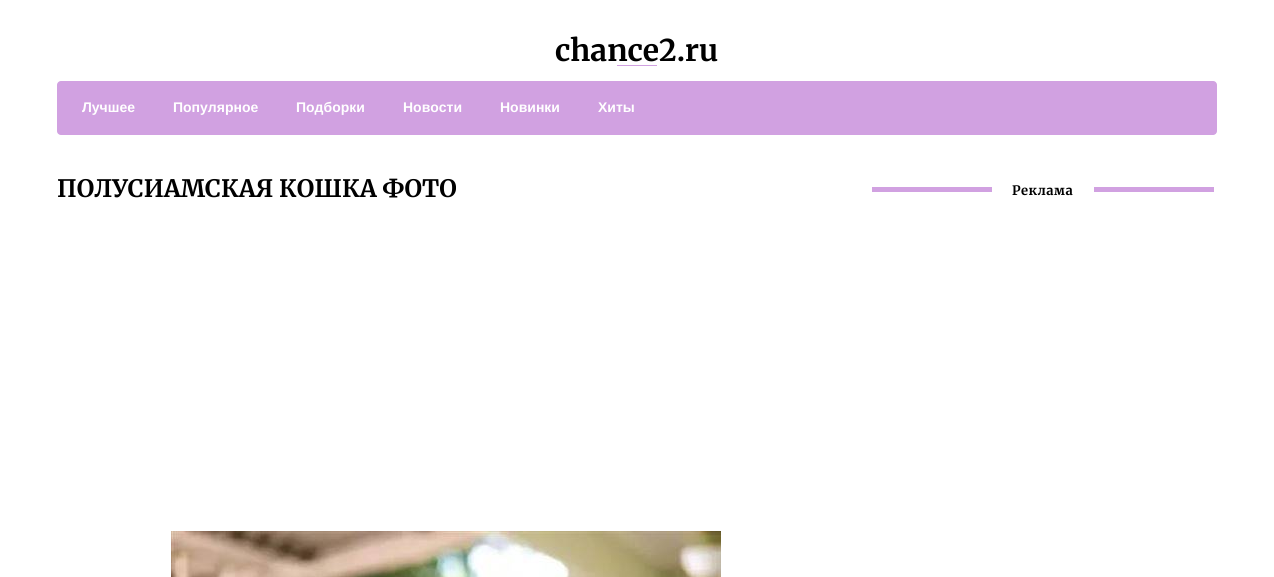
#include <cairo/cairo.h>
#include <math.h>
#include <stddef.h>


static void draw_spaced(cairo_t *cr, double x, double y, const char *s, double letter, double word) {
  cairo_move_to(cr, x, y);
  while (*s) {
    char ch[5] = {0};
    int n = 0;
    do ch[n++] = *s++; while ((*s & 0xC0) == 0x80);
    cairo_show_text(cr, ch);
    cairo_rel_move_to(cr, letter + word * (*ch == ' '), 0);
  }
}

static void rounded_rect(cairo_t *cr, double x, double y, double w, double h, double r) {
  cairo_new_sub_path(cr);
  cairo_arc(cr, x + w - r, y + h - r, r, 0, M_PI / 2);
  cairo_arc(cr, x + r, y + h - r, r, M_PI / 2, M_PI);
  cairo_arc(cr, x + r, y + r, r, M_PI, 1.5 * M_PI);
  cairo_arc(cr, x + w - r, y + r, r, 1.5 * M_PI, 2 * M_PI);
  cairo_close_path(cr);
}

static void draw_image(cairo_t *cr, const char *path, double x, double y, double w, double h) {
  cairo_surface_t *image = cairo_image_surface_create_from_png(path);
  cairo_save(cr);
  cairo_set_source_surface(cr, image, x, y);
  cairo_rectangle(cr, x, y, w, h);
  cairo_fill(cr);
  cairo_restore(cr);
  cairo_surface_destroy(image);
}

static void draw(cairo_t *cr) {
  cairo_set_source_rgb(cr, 1, 1, 1);
  cairo_paint(cr);
  cairo_set_source_rgb(cr, 209 / 255.0, 161 / 255.0, 225 / 255.0);
  cairo_rectangle(cr, 617, 65, 40, 1);
  cairo_fill(cr);
  rounded_rect(cr, 57, 81, 1160, 54, 4);
  cairo_fill(cr);
  draw_image(cr, "images/1.png", 171, 531, 550, 46);
  cairo_rectangle(cr, 872, 187, 342, 5);
  cairo_fill(cr);
  cairo_set_source_rgb(cr, 1, 1, 1);
  cairo_rectangle(cr, 992, 187, 102, 5);
  cairo_fill(cr);
  cairo_select_font_face(cr, "Merriweather", CAIRO_FONT_SLANT_NORMAL, CAIRO_FONT_WEIGHT_BOLD);
  cairo_set_font_size(cr, 30);
  cairo_set_source_rgb(cr, 0, 0, 0);
  cairo_move_to(cr, 555, 61);
  cairo_show_text(cr, "chance2.ru");
  cairo_select_font_face(cr, "Liberation Sans", CAIRO_FONT_SLANT_NORMAL, CAIRO_FONT_WEIGHT_BOLD);
  cairo_set_font_size(cr, 14);
  cairo_set_source_rgb(cr, 1, 1, 1);
  cairo_move_to(cr, 82, 112);
  cairo_show_text(cr, "Лучшее");
  cairo_move_to(cr, 173, 112);
  cairo_show_text(cr, "Популярное");
  cairo_move_to(cr, 296, 112);
  cairo_show_text(cr, "Подборки");
  cairo_move_to(cr, 403, 112);
  cairo_show_text(cr, "Новости");
  cairo_move_to(cr, 500, 112);
  cairo_show_text(cr, "Новинки");
  cairo_move_to(cr, 598, 112);
  cairo_show_text(cr, "Хиты");
  cairo_select_font_face(cr, "Merriweather", CAIRO_FONT_SLANT_NORMAL, CAIRO_FONT_WEIGHT_BOLD);
  cairo_set_font_size(cr, 24);
  cairo_set_source_rgb(cr, 0, 0, 0);
  cairo_move_to(cr, 57, 197);
  cairo_show_text(cr, "ПОЛУСИАМСКАЯ КОШКА ФОТО");
  cairo_set_font_size(cr, 13);
  draw_spaced(cr, 1012, 195, "Реклама", 0.5, 0);
}

int main(void) {
  cairo_surface_t *surface = cairo_image_surface_create(CAIRO_FORMAT_RGB24, 1274, 577);
  cairo_t *cr = cairo_create(surface);
  cairo_font_options_t *options = cairo_font_options_create();
  cairo_font_options_set_hint_metrics(options, CAIRO_HINT_METRICS_OFF);
  cairo_font_options_set_hint_style(options, CAIRO_HINT_STYLE_NONE);
  cairo_set_font_options(cr, options);
  cairo_set_miter_limit(cr, 4);
  draw(cr);
  cairo_surface_write_to_png(surface, "out.png");
  cairo_font_options_destroy(options);
  cairo_destroy(cr);
  cairo_surface_destroy(surface);
  return 0;
}
